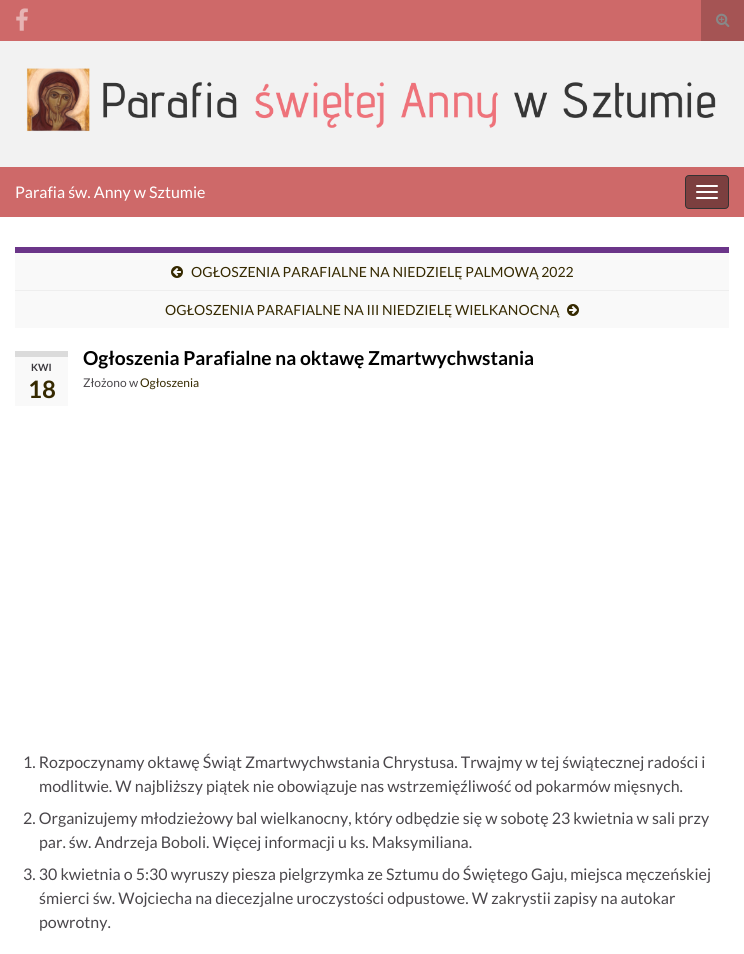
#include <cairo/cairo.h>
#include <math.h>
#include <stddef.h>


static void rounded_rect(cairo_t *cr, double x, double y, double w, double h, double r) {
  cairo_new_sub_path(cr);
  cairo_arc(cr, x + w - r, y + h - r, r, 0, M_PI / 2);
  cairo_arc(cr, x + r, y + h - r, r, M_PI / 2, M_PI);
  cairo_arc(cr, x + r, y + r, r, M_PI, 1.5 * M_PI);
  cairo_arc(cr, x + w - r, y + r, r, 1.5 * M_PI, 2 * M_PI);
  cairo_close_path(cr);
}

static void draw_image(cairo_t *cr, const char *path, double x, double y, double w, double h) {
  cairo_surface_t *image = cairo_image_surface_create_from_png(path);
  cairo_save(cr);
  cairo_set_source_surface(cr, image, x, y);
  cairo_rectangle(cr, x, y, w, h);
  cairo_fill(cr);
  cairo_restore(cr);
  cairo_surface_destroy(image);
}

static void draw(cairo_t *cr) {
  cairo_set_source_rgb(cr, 206 / 255.0, 105 / 255.0, 105 / 255.0);
  cairo_paint(cr);
  draw_image(cr, "images/1.png", 16, 8, 12, 23);
  cairo_set_source_rgb(cr, 165 / 255.0, 84 / 255.0, 84 / 255.0);
  cairo_rectangle(cr, 701, 0, 43, 41);
  cairo_fill(cr);
  draw_image(cr, "images/2.png", 716, 13, 14, 14);
  draw_image(cr, "images/3.png", 0, 41, 744, 126);
  cairo_set_source_rgb(cr, 124 / 255.0, 63 / 255.0, 63 / 255.0);
  rounded_rect(cr, 685.5, 175.5, 43, 33, 3.5);
  cairo_fill_preserve(cr);
  cairo_set_source_rgb(cr, 51 / 255.0, 51 / 255.0, 51 / 255.0);
  cairo_set_line_width(cr, 1);
  cairo_stroke(cr);
  cairo_set_source_rgb(cr, 1, 1, 1);
  rounded_rect(cr, 696, 185, 22, 2, 1);
  cairo_fill(cr);
  rounded_rect(cr, 696, 191, 22, 2, 1);
  cairo_fill(cr);
  rounded_rect(cr, 696, 197, 22, 2, 1);
  cairo_fill(cr);
  cairo_rectangle(cr, 0, 217, 744, 737);
  cairo_fill(cr);
  cairo_set_source_rgb(cr, 249 / 255.0, 249 / 255.0, 249 / 255.0);
  cairo_rectangle(cr, 15, 253, 714, 75);
  cairo_fill(cr);
  cairo_set_source_rgb(cr, 107 / 255.0, 53 / 255.0, 137 / 255.0);
  cairo_rectangle(cr, 15, 247, 714, 6);
  cairo_fill(cr);
  draw_image(cr, "images/4.png", 171, 266, 12, 12);
  cairo_set_source_rgb(cr, 238 / 255.0, 238 / 255.0, 238 / 255.0);
  cairo_rectangle(cr, 15, 290, 714, 1);
  cairo_fill(cr);
  draw_image(cr, "images/5.png", 567, 304, 12, 12);
  cairo_set_source_rgb(cr, 249 / 255.0, 249 / 255.0, 249 / 255.0);
  cairo_rectangle(cr, 15, 357, 53, 49);
  cairo_fill(cr);
  cairo_set_source_rgb(cr, 219 / 255.0, 219 / 255.0, 219 / 255.0);
  cairo_rectangle(cr, 15, 351, 53, 6);
  cairo_fill(cr);
  cairo_select_font_face(cr, "Lato", CAIRO_FONT_SLANT_NORMAL, CAIRO_FONT_WEIGHT_NORMAL);
  cairo_set_font_size(cr, 16);
  cairo_set_source_rgb(cr, 1, 1, 1);
  cairo_move_to(cr, 15, 198);
  cairo_show_text(cr, "Parafia św. Anny w Sztumie");
  cairo_set_font_size(cr, 14);
  cairo_set_source_rgb(cr, 53 / 255.0, 41 / 255.0, 0);
  cairo_move_to(cr, 191, 277);
  cairo_show_text(cr, "OGŁOSZENIA PARAFIALNE NA NIEDZIELĘ PALMOWĄ 2022");
  cairo_move_to(cr, 165, 315);
  cairo_show_text(cr, "OGŁOSZENIA PARAFIALNE NA III NIEDZIELĘ WIELKANOCNĄ");
  cairo_select_font_face(cr, "Lato", CAIRO_FONT_SLANT_NORMAL, CAIRO_FONT_WEIGHT_BOLD);
  cairo_set_font_size(cr, 19.2);
  cairo_set_source_rgb(cr, 0, 0, 0);
  cairo_move_to(cr, 83, 365);
  cairo_show_text(cr, "Ogłoszenia Parafialne na oktawę Zmartwychwstania");
  cairo_set_font_size(cr, 10);
  cairo_set_source_rgb(cr, 59 / 255.0, 56 / 255.0, 61 / 255.0);
  cairo_move_to(cr, 31, 371);
  cairo_show_text(cr, "KWI");
  cairo_set_font_size(cr, 24);
  cairo_set_source_rgb(cr, 53 / 255.0, 41 / 255.0, 0);
  cairo_move_to(cr, 28, 398);
  cairo_show_text(cr, "18");
  cairo_select_font_face(cr, "Lato", CAIRO_FONT_SLANT_NORMAL, CAIRO_FONT_WEIGHT_NORMAL);
  cairo_set_font_size(cr, 12);
  cairo_set_source_rgb(cr, 74 / 255.0, 71 / 255.0, 75 / 255.0);
  cairo_move_to(cr, 83, 387);
  cairo_show_text(cr, "Złożono w");
  cairo_set_source_rgb(cr, 53 / 255.0, 41 / 255.0, 0);
  cairo_move_to(cr, 140, 387);
  cairo_show_text(cr, "Ogłoszenia");
  cairo_set_font_size(cr, 16);
  cairo_set_source_rgb(cr, 74 / 255.0, 71 / 255.0, 75 / 255.0);
  cairo_move_to(cr, 23, 768);
  cairo_show_text(cr, "1. Rozpoczynamy oktawę Świąt Zmartwychwstania Chrystusa. Trwajmy w tej świątecznej radości i");
  cairo_move_to(cr, 39, 792);
  cairo_show_text(cr, "modlitwie. W najbliższy piątek nie obowiązuje nas wstrzemięźliwość od pokarmów mięsnych.");
  cairo_move_to(cr, 23, 824);
  cairo_show_text(cr, "2. Organizujemy młodzieżowy bal wielkanocny, który odbędzie się w sobotę 23 kwietnia w sali przy");
  cairo_move_to(cr, 39, 848);
  cairo_show_text(cr, "par. św. Andrzeja Boboli. Więcej informacji u ks. Maksymiliana.");
  cairo_move_to(cr, 23, 880);
  cairo_show_text(cr, "3. 30 kwietnia o 5:30 wyruszy piesza pielgrzymka ze Sztumu do Świętego Gaju, miejsca męczeńskiej");
  cairo_move_to(cr, 39, 904);
  cairo_show_text(cr, "śmierci św. Wojciecha na diecezjalne uroczystości odpustowe. W zakrystii zapisy na autokar");
  cairo_move_to(cr, 39, 928);
  cairo_show_text(cr, "powrotny.");
}

int main(void) {
  cairo_surface_t *surface = cairo_image_surface_create(CAIRO_FORMAT_RGB24, 744, 954);
  cairo_t *cr = cairo_create(surface);
  cairo_font_options_t *options = cairo_font_options_create();
  cairo_font_options_set_hint_metrics(options, CAIRO_HINT_METRICS_OFF);
  cairo_font_options_set_hint_style(options, CAIRO_HINT_STYLE_NONE);
  cairo_set_font_options(cr, options);
  cairo_set_miter_limit(cr, 4);
  draw(cr);
  cairo_surface_write_to_png(surface, "out.png");
  cairo_font_options_destroy(options);
  cairo_destroy(cr);
  cairo_surface_destroy(surface);
  return 0;
}
